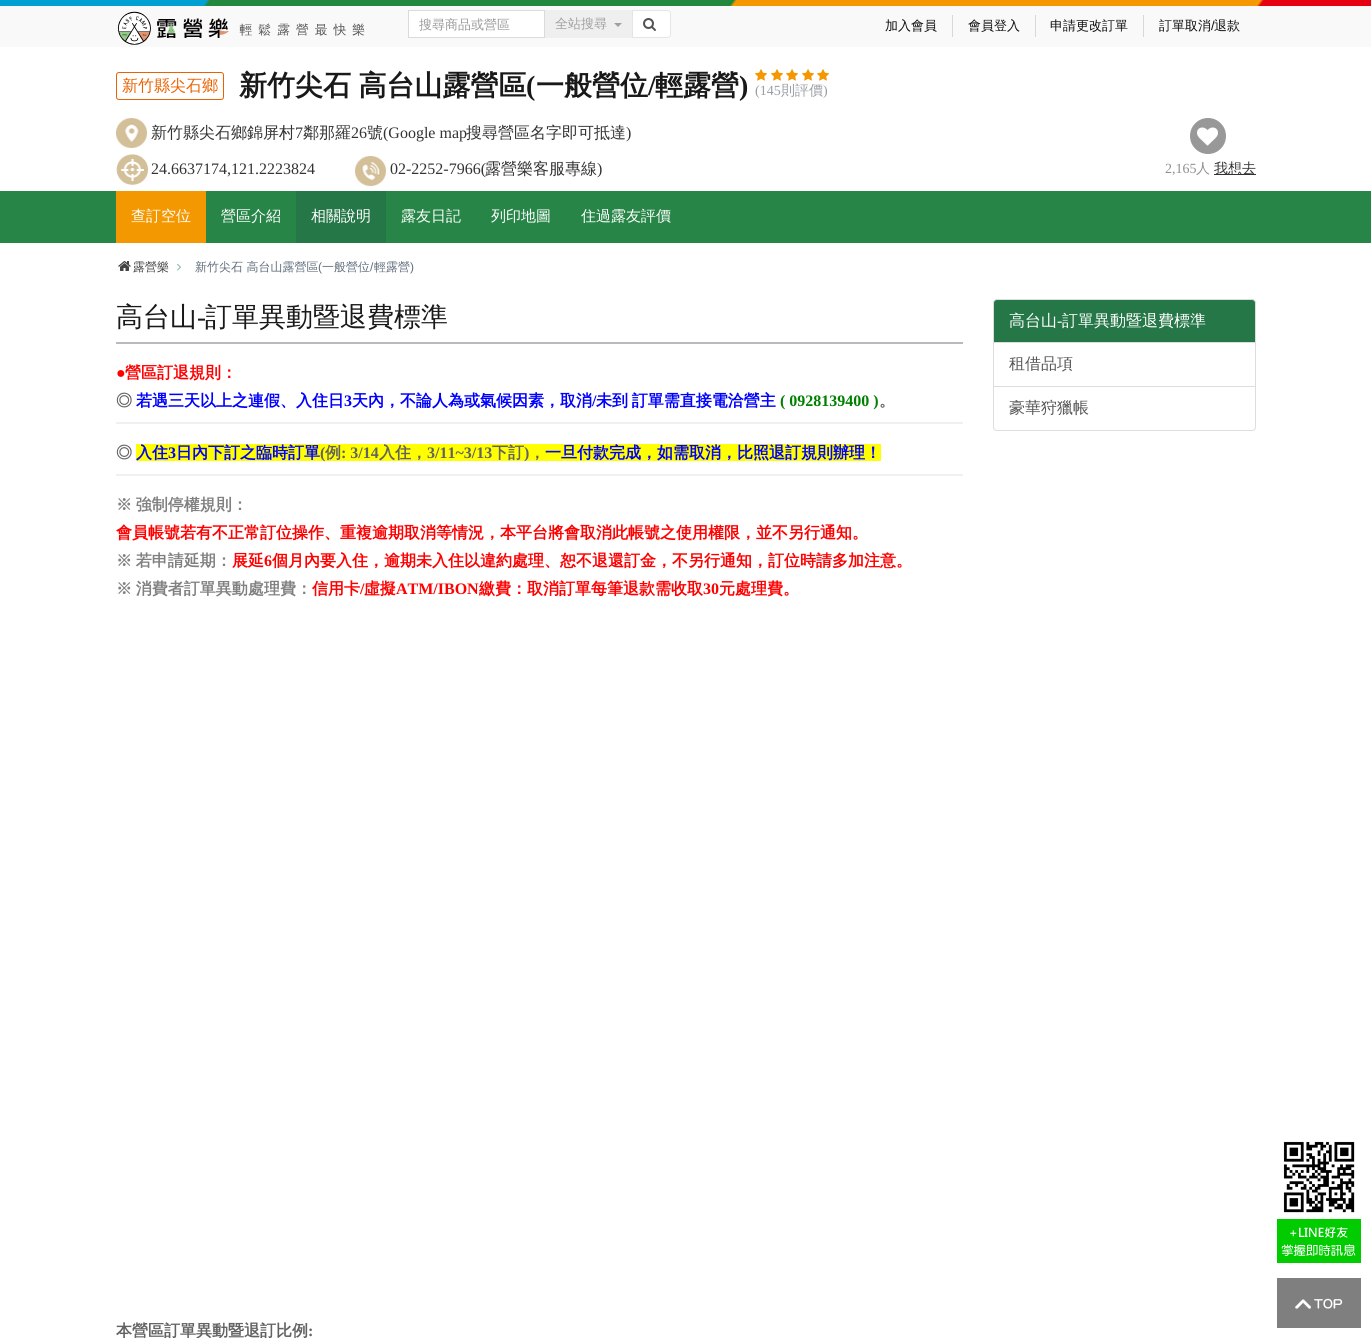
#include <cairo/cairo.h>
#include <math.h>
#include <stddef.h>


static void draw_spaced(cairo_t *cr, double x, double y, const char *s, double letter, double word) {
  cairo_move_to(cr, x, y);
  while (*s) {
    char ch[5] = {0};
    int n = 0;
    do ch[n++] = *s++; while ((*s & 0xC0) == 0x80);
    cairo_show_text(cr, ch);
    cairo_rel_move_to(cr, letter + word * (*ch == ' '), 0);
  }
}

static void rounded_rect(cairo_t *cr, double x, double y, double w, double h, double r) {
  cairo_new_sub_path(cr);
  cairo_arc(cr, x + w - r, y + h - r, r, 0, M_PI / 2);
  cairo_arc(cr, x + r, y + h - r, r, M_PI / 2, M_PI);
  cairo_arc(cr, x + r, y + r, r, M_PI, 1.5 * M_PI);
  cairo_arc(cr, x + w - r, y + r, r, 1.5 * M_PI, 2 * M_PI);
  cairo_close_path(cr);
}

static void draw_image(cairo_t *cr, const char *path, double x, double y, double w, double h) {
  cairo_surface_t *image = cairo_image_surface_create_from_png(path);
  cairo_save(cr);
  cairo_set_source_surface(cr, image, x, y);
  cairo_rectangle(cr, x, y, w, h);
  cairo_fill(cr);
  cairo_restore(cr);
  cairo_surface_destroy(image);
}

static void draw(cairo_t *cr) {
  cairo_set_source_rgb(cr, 1, 1, 1);
  cairo_paint(cr);
  cairo_set_source_rgb(cr, 249 / 255.0, 249 / 255.0, 249 / 255.0);
  cairo_rectangle(cr, 0, 6, 1371, 41);
  cairo_fill(cr);
  draw_image(cr, "images/1.png", 0, 0, 1371, 6);
  draw_image(cr, "images/2.png", 117, 11, 248, 34);
  cairo_set_source_rgb(cr, 1, 1, 1);
  cairo_rectangle(cr, 408.5, 10.5, 136, 27);
  cairo_fill_preserve(cr);
  cairo_set_source_rgb(cr, 219 / 255.0, 219 / 255.0, 219 / 255.0);
  cairo_set_line_width(cr, 1);
  cairo_stroke(cr);
  cairo_set_source_rgb(cr, 239 / 255.0, 239 / 255.0, 239 / 255.0);
  cairo_rectangle(cr, 545, 10, 87, 28);
  cairo_fill(cr);
  cairo_set_source_rgb(cr, 160 / 255.0, 160 / 255.0, 160 / 255.0);
  cairo_new_path(cr);
  cairo_move_to(cr, 614, 23);
  cairo_line_to(cr, 622, 23);
  cairo_line_to(cr, 618, 27);
  cairo_close_path(cr);
  cairo_fill(cr);
  cairo_set_source_rgb(cr, 1, 1, 1);
  cairo_new_path(cr);
  cairo_move_to(cr, 632.5, 10.5);
  cairo_line_to(cr, 667, 10.5);
  cairo_curve_to(cr, 669, 10.5, 670.5, 12, 670.5, 14);
  cairo_line_to(cr, 670.5, 34);
  cairo_curve_to(cr, 670.5, 36, 669, 37.5, 667, 37.5);
  cairo_line_to(cr, 632.5, 37.5);
  cairo_close_path(cr);
  cairo_fill_preserve(cr);
  cairo_set_source_rgb(cr, 229 / 255.0, 229 / 255.0, 229 / 255.0);
  cairo_stroke(cr);
  draw_image(cr, "images/3.png", 643, 18, 13, 13);
  cairo_set_source_rgb(cr, 216 / 255.0, 216 / 255.0, 216 / 255.0);
  cairo_rectangle(cr, 952, 15, 1, 22);
  cairo_fill(cr);
  cairo_rectangle(cr, 1035, 15, 1, 22);
  cairo_fill(cr);
  cairo_rectangle(cr, 1143, 15, 1, 22);
  cairo_fill(cr);
  rounded_rect(cr, 116.5, 72.5, 107, 27, 2.5);
  cairo_set_source_rgb(cr, 235 / 255.0, 97 / 255.0, 0);
  cairo_stroke(cr);
  draw_image(cr, "images/4.png", 755, 69, 12, 12);
  draw_image(cr, "images/4.png", 771, 69, 12, 12);
  draw_image(cr, "images/4.png", 786, 69, 12, 12);
  draw_image(cr, "images/4.png", 802, 69, 12, 12);
  draw_image(cr, "images/4.png", 817, 69, 12, 12);
  draw_image(cr, "images/5.png", 116, 118, 31, 30);
  draw_image(cr, "images/6.png", 116, 154, 32, 31);
  draw_image(cr, "images/7.png", 355, 156, 31, 30);
  cairo_set_source_rgb(cr, 152 / 255.0, 152 / 255.0, 152 / 255.0);
  cairo_arc(cr, 1208, 136, 18, 0, 2 * M_PI);
  cairo_fill(cr);
  draw_image(cr, "images/8.png", 1197, 127, 21, 19);
  cairo_set_source_rgb(cr, 49 / 255.0, 49 / 255.0, 49 / 255.0);
  cairo_rectangle(cr, 1214, 174, 42, 1);
  cairo_fill(cr);
  cairo_set_source_rgb(cr, 39 / 255.0, 134 / 255.0, 71 / 255.0);
  cairo_rectangle(cr, 0, 191, 1371, 52);
  cairo_fill(cr);
  cairo_set_source_rgb(cr, 243 / 255.0, 152 / 255.0, 0);
  cairo_rectangle(cr, 116, 191, 90, 52);
  cairo_fill(cr);
  cairo_set_source_rgb(cr, 37 / 255.0, 119 / 255.0, 71 / 255.0);
  cairo_rectangle(cr, 296, 191, 90, 52);
  cairo_fill(cr);
  draw_image(cr, "images/9.png", 118, 261, 13, 10);
  draw_image(cr, "images/10.png", 177, 263, 4, 8);
  cairo_set_source_rgb(cr, 183 / 255.0, 187 / 255.0, 191 / 255.0);
  cairo_rectangle(cr, 116, 342, 847, 2);
  cairo_fill(cr);
  cairo_set_source_rgb(cr, 241 / 255.0, 240 / 255.0, 240 / 255.0);
  cairo_rectangle(cr, 116, 422, 847, 2);
  cairo_fill(cr);
  cairo_set_source_rgb(cr, 1, 1, 0);
  cairo_rectangle(cr, 136, 444, 745, 17);
  cairo_fill(cr);
  cairo_set_source_rgb(cr, 241 / 255.0, 240 / 255.0, 240 / 255.0);
  cairo_rectangle(cr, 116, 474, 847, 2);
  cairo_fill(cr);
  cairo_rectangle(cr, 993.5, 342.5, 262, 44);
  cairo_set_source_rgb(cr, 221 / 255.0, 221 / 255.0, 221 / 255.0);
  cairo_stroke(cr);
  cairo_set_source_rgb(cr, 37 / 255.0, 119 / 255.0, 71 / 255.0);
  cairo_new_path(cr);
  cairo_move_to(cr, 997, 299.5);
  cairo_line_to(cr, 1252, 299.5);
  cairo_curve_to(cr, 1254, 299.5, 1255.5, 301, 1255.5, 303);
  cairo_line_to(cr, 1255.5, 342.5);
  cairo_line_to(cr, 993.5, 342.5);
  cairo_line_to(cr, 993.5, 303);
  cairo_curve_to(cr, 993.5, 301, 995, 299.5, 997, 299.5);
  cairo_close_path(cr);
  cairo_fill_preserve(cr);
  cairo_set_source_rgb(cr, 221 / 255.0, 221 / 255.0, 221 / 255.0);
  cairo_stroke(cr);
  cairo_set_source_rgb(cr, 1, 1, 1);
  cairo_new_path(cr);
  cairo_move_to(cr, 993.5, 386.5);
  cairo_line_to(cr, 1255.5, 386.5);
  cairo_line_to(cr, 1255.5, 427);
  cairo_curve_to(cr, 1255.5, 429, 1254, 430.5, 1252, 430.5);
  cairo_line_to(cr, 997, 430.5);
  cairo_curve_to(cr, 995, 430.5, 993.5, 429, 993.5, 427);
  cairo_close_path(cr);
  cairo_fill_preserve(cr);
  cairo_set_source_rgb(cr, 221 / 255.0, 221 / 255.0, 221 / 255.0);
  cairo_stroke(cr);
  draw_image(cr, "images/11.png", 1277, 1141, 84, 187);
  cairo_select_font_face(cr, "WenQuanYi Zen Hei Medium", CAIRO_FONT_SLANT_NORMAL, CAIRO_FONT_WEIGHT_NORMAL);
  cairo_set_font_size(cr, 13);
  cairo_set_source_rgb(cr, 153 / 255.0, 153 / 255.0, 153 / 255.0);
  cairo_move_to(cr, 419, 29);
  cairo_show_text(cr, "搜尋商品或營區");
  cairo_set_source_rgb(cr, 160 / 255.0, 160 / 255.0, 160 / 255.0);
  cairo_move_to(cr, 555, 28);
  cairo_show_text(cr, "全站搜尋");
  cairo_set_source_rgb(cr, 12 / 255.0, 12 / 255.0, 12 / 255.0);
  cairo_move_to(cr, 885, 30);
  cairo_show_text(cr, "加入會員");
  cairo_move_to(cr, 968, 30);
  cairo_show_text(cr, "會員登入");
  cairo_move_to(cr, 1050, 30);
  cairo_show_text(cr, "申請更改訂單");
  cairo_move_to(cr, 1159, 30);
  cairo_show_text(cr, "訂單取消");
  cairo_select_font_face(cr, "Liberation Sans", CAIRO_FONT_SLANT_NORMAL, CAIRO_FONT_WEIGHT_NORMAL);
  cairo_move_to(cr, 1211, 30);
  cairo_show_text(cr, "/");
  cairo_select_font_face(cr, "WenQuanYi Zen Hei Medium", CAIRO_FONT_SLANT_NORMAL, CAIRO_FONT_WEIGHT_NORMAL);
  cairo_move_to(cr, 1214, 30);
  cairo_show_text(cr, "退款");
  cairo_set_font_size(cr, 16);
  cairo_set_source_rgb(cr, 235 / 255.0, 97 / 255.0, 0);
  cairo_move_to(cr, 122, 91);
  cairo_show_text(cr, "新竹縣尖石鄉");
  cairo_select_font_face(cr, "WenQuanYi Zen Hei", CAIRO_FONT_SLANT_NORMAL, CAIRO_FONT_WEIGHT_BOLD);
  cairo_set_font_size(cr, 28);
  cairo_set_source_rgb(cr, 25 / 255.0, 25 / 255.0, 25 / 255.0);
  draw_spaced(cr, 239, 95, "新竹尖石 高台山露營區", 0, -1);
  cairo_select_font_face(cr, "Liberation Serif", CAIRO_FONT_SLANT_NORMAL, CAIRO_FONT_WEIGHT_BOLD);
  cairo_move_to(cr, 526, 95);
  cairo_show_text(cr, "(");
  cairo_select_font_face(cr, "WenQuanYi Zen Hei", CAIRO_FONT_SLANT_NORMAL, CAIRO_FONT_WEIGHT_BOLD);
  cairo_move_to(cr, 536, 95);
  cairo_show_text(cr, "一般營位");
  cairo_select_font_face(cr, "Liberation Serif", CAIRO_FONT_SLANT_NORMAL, CAIRO_FONT_WEIGHT_BOLD);
  cairo_move_to(cr, 648, 95);
  cairo_show_text(cr, "/");
  cairo_select_font_face(cr, "WenQuanYi Zen Hei", CAIRO_FONT_SLANT_NORMAL, CAIRO_FONT_WEIGHT_BOLD);
  cairo_move_to(cr, 655, 95);
  cairo_show_text(cr, "輕露營");
  cairo_select_font_face(cr, "Liberation Serif", CAIRO_FONT_SLANT_NORMAL, CAIRO_FONT_WEIGHT_BOLD);
  cairo_move_to(cr, 739, 95);
  cairo_show_text(cr, ")");
  cairo_select_font_face(cr, "Liberation Serif", CAIRO_FONT_SLANT_NORMAL, CAIRO_FONT_WEIGHT_NORMAL);
  cairo_set_font_size(cr, 14);
  cairo_set_source_rgb(cr, 153 / 255.0, 157 / 255.0, 165 / 255.0);
  cairo_move_to(cr, 755, 95);
  cairo_show_text(cr, "(145");
  cairo_select_font_face(cr, "WenQuanYi Zen Hei Medium", CAIRO_FONT_SLANT_NORMAL, CAIRO_FONT_WEIGHT_NORMAL);
  cairo_move_to(cr, 781, 95);
  cairo_show_text(cr, "則評價");
  cairo_select_font_face(cr, "Liberation Serif", CAIRO_FONT_SLANT_NORMAL, CAIRO_FONT_WEIGHT_NORMAL);
  cairo_move_to(cr, 823, 95);
  cairo_show_text(cr, ")");
  cairo_select_font_face(cr, "WenQuanYi Zen Hei Medium", CAIRO_FONT_SLANT_NORMAL, CAIRO_FONT_WEIGHT_NORMAL);
  cairo_set_font_size(cr, 16);
  cairo_set_source_rgb(cr, 51 / 255.0, 51 / 255.0, 51 / 255.0);
  cairo_move_to(cr, 151, 138);
  cairo_show_text(cr, "新竹縣尖石鄉錦屏村");
  cairo_select_font_face(cr, "Liberation Serif", CAIRO_FONT_SLANT_NORMAL, CAIRO_FONT_WEIGHT_NORMAL);
  cairo_move_to(cr, 295, 138);
  cairo_show_text(cr, "7");
  cairo_select_font_face(cr, "WenQuanYi Zen Hei Medium", CAIRO_FONT_SLANT_NORMAL, CAIRO_FONT_WEIGHT_NORMAL);
  cairo_move_to(cr, 303, 138);
  cairo_show_text(cr, "鄰那羅");
  cairo_select_font_face(cr, "Liberation Serif", CAIRO_FONT_SLANT_NORMAL, CAIRO_FONT_WEIGHT_NORMAL);
  cairo_move_to(cr, 351, 138);
  cairo_show_text(cr, "26");
  cairo_select_font_face(cr, "WenQuanYi Zen Hei Medium", CAIRO_FONT_SLANT_NORMAL, CAIRO_FONT_WEIGHT_NORMAL);
  cairo_move_to(cr, 367, 138);
  cairo_show_text(cr, "號");
  cairo_select_font_face(cr, "Liberation Serif", CAIRO_FONT_SLANT_NORMAL, CAIRO_FONT_WEIGHT_NORMAL);
  cairo_move_to(cr, 383, 138);
  cairo_show_text(cr, "(Google map");
  cairo_select_font_face(cr, "WenQuanYi Zen Hei Medium", CAIRO_FONT_SLANT_NORMAL, CAIRO_FONT_WEIGHT_NORMAL);
  cairo_move_to(cr, 466, 138);
  cairo_show_text(cr, "搜尋營區名字即可抵達");
  cairo_select_font_face(cr, "Liberation Serif", CAIRO_FONT_SLANT_NORMAL, CAIRO_FONT_WEIGHT_NORMAL);
  cairo_move_to(cr, 626, 138);
  cairo_show_text(cr, ")");
  cairo_move_to(cr, 151, 174);
  cairo_show_text(cr, "24.6637174,121.2223824");
  cairo_move_to(cr, 390, 174);
  cairo_show_text(cr, "02-2252-7966(");
  cairo_select_font_face(cr, "WenQuanYi Zen Hei Medium", CAIRO_FONT_SLANT_NORMAL, CAIRO_FONT_WEIGHT_NORMAL);
  cairo_move_to(cr, 485, 174);
  cairo_show_text(cr, "露營樂客服專線");
  cairo_select_font_face(cr, "Liberation Serif", CAIRO_FONT_SLANT_NORMAL, CAIRO_FONT_WEIGHT_NORMAL);
  cairo_move_to(cr, 597, 174);
  cairo_show_text(cr, ")");
  cairo_set_font_size(cr, 14);
  cairo_set_source_rgb(cr, 144 / 255.0, 144 / 255.0, 144 / 255.0);
  cairo_move_to(cr, 1165, 173);
  cairo_show_text(cr, "2,165");
  cairo_select_font_face(cr, "WenQuanYi Zen Hei Medium", CAIRO_FONT_SLANT_NORMAL, CAIRO_FONT_WEIGHT_NORMAL);
  cairo_move_to(cr, 1196, 173);
  cairo_show_text(cr, "人");
  cairo_set_source_rgb(cr, 51 / 255.0, 51 / 255.0, 51 / 255.0);
  cairo_move_to(cr, 1214, 173);
  cairo_show_text(cr, "我想去");
  cairo_set_font_size(cr, 15);
  cairo_set_source_rgb(cr, 1, 1, 1);
  cairo_move_to(cr, 131, 221);
  cairo_show_text(cr, "查訂空位");
  cairo_move_to(cr, 221, 221);
  cairo_show_text(cr, "營區介紹");
  cairo_move_to(cr, 311, 221);
  cairo_show_text(cr, "相關說明");
  cairo_move_to(cr, 401, 221);
  cairo_show_text(cr, "露友日記");
  cairo_move_to(cr, 491, 221);
  cairo_show_text(cr, "列印地圖");
  cairo_move_to(cr, 581, 221);
  cairo_show_text(cr, "住過露友評價");
  cairo_set_font_size(cr, 12);
  cairo_set_source_rgb(cr, 67 / 255.0, 67 / 255.0, 67 / 255.0);
  cairo_move_to(cr, 133, 271);
  cairo_show_text(cr, "露營樂");
  cairo_set_source_rgb(cr, 95 / 255.0, 109 / 255.0, 123 / 255.0);
  cairo_move_to(cr, 195, 271);
  cairo_show_text(cr, "新竹尖石 高台山露營區");
  cairo_select_font_face(cr, "Liberation Sans", CAIRO_FONT_SLANT_NORMAL, CAIRO_FONT_WEIGHT_NORMAL);
  cairo_move_to(cr, 318, 271);
  cairo_show_text(cr, "(");
  cairo_select_font_face(cr, "WenQuanYi Zen Hei Medium", CAIRO_FONT_SLANT_NORMAL, CAIRO_FONT_WEIGHT_NORMAL);
  cairo_move_to(cr, 322, 271);
  cairo_show_text(cr, "一般營位");
  cairo_select_font_face(cr, "Liberation Sans", CAIRO_FONT_SLANT_NORMAL, CAIRO_FONT_WEIGHT_NORMAL);
  cairo_move_to(cr, 370, 271);
  cairo_show_text(cr, "/");
  cairo_select_font_face(cr, "WenQuanYi Zen Hei Medium", CAIRO_FONT_SLANT_NORMAL, CAIRO_FONT_WEIGHT_NORMAL);
  cairo_move_to(cr, 374, 271);
  cairo_show_text(cr, "輕露營");
  cairo_select_font_face(cr, "Liberation Sans", CAIRO_FONT_SLANT_NORMAL, CAIRO_FONT_WEIGHT_NORMAL);
  cairo_move_to(cr, 410, 271);
  cairo_show_text(cr, ")");
  cairo_select_font_face(cr, "WenQuanYi Zen Hei Medium", CAIRO_FONT_SLANT_NORMAL, CAIRO_FONT_WEIGHT_NORMAL);
  cairo_set_font_size(cr, 27);
  cairo_set_source_rgb(cr, 25 / 255.0, 25 / 255.0, 25 / 255.0);
  cairo_move_to(cr, 116, 326);
  cairo_show_text(cr, "高台山");
  cairo_select_font_face(cr, "Liberation Serif", CAIRO_FONT_SLANT_NORMAL, CAIRO_FONT_WEIGHT_NORMAL);
  cairo_move_to(cr, 197, 326);
  cairo_show_text(cr, "-");
  cairo_select_font_face(cr, "WenQuanYi Zen Hei Medium", CAIRO_FONT_SLANT_NORMAL, CAIRO_FONT_WEIGHT_NORMAL);
  cairo_move_to(cr, 205, 326);
  cairo_show_text(cr, "訂單異動暨退費標準");
  cairo_select_font_face(cr, "Liberation Serif", CAIRO_FONT_SLANT_NORMAL, CAIRO_FONT_WEIGHT_BOLD);
  cairo_set_font_size(cr, 16);
  cairo_set_source_rgb(cr, 1, 0, 0);
  cairo_move_to(cr, 116, 378);
  cairo_show_text(cr, "●");
  cairo_select_font_face(cr, "WenQuanYi Zen Hei", CAIRO_FONT_SLANT_NORMAL, CAIRO_FONT_WEIGHT_BOLD);
  cairo_move_to(cr, 125, 378);
  cairo_show_text(cr, "營區訂退規則：");
  cairo_set_source_rgb(cr, 98 / 255.0, 98 / 255.0, 98 / 255.0);
  cairo_move_to(cr, 116, 406);
  cairo_show_text(cr, "◎");
  cairo_set_source_rgb(cr, 0, 0, 1);
  cairo_move_to(cr, 136, 406);
  cairo_show_text(cr, "若遇三天以上之連假、入住日");
  cairo_select_font_face(cr, "Liberation Serif", CAIRO_FONT_SLANT_NORMAL, CAIRO_FONT_WEIGHT_BOLD);
  cairo_move_to(cr, 344, 406);
  cairo_show_text(cr, "3");
  cairo_select_font_face(cr, "WenQuanYi Zen Hei", CAIRO_FONT_SLANT_NORMAL, CAIRO_FONT_WEIGHT_BOLD);
  cairo_move_to(cr, 352, 406);
  cairo_show_text(cr, "天內，不論人為或氣候因素，取消");
  cairo_select_font_face(cr, "Liberation Serif", CAIRO_FONT_SLANT_NORMAL, CAIRO_FONT_WEIGHT_BOLD);
  cairo_move_to(cr, 592, 406);
  cairo_show_text(cr, "/");
  cairo_select_font_face(cr, "WenQuanYi Zen Hei", CAIRO_FONT_SLANT_NORMAL, CAIRO_FONT_WEIGHT_BOLD);
  draw_spaced(cr, 596, 406, "未到 訂單需直接電洽營主", 0, -1);
  cairo_select_font_face(cr, "Liberation Serif", CAIRO_FONT_SLANT_NORMAL, CAIRO_FONT_WEIGHT_BOLD);
  cairo_set_source_rgb(cr, 0, 128 / 255.0, 0);
  cairo_move_to(cr, 780, 406);
  cairo_show_text(cr, "( 0928139400 )");
  cairo_select_font_face(cr, "WenQuanYi Zen Hei", CAIRO_FONT_SLANT_NORMAL, CAIRO_FONT_WEIGHT_BOLD);
  cairo_set_source_rgb(cr, 98 / 255.0, 98 / 255.0, 98 / 255.0);
  cairo_move_to(cr, 879, 406);
  cairo_show_text(cr, "。");
  cairo_move_to(cr, 116, 458);
  cairo_show_text(cr, "◎");
  cairo_set_source_rgb(cr, 0, 0, 1);
  cairo_move_to(cr, 136, 458);
  cairo_show_text(cr, "入住");
  cairo_select_font_face(cr, "Liberation Serif", CAIRO_FONT_SLANT_NORMAL, CAIRO_FONT_WEIGHT_BOLD);
  cairo_move_to(cr, 168, 458);
  cairo_show_text(cr, "3");
  cairo_select_font_face(cr, "WenQuanYi Zen Hei", CAIRO_FONT_SLANT_NORMAL, CAIRO_FONT_WEIGHT_BOLD);
  cairo_move_to(cr, 176, 458);
  cairo_show_text(cr, "日內下訂之臨時訂單");
  cairo_select_font_face(cr, "Liberation Serif", CAIRO_FONT_SLANT_NORMAL, CAIRO_FONT_WEIGHT_BOLD);
  cairo_set_source_rgb(cr, 98 / 255.0, 98 / 255.0, 98 / 255.0);
  cairo_move_to(cr, 320, 458);
  cairo_show_text(cr, "(");
  cairo_select_font_face(cr, "WenQuanYi Zen Hei", CAIRO_FONT_SLANT_NORMAL, CAIRO_FONT_WEIGHT_BOLD);
  cairo_move_to(cr, 325, 458);
  cairo_show_text(cr, "例");
  cairo_select_font_face(cr, "Liberation Serif", CAIRO_FONT_SLANT_NORMAL, CAIRO_FONT_WEIGHT_BOLD);
  cairo_move_to(cr, 341, 458);
  cairo_show_text(cr, ": 3/14");
  cairo_select_font_face(cr, "WenQuanYi Zen Hei", CAIRO_FONT_SLANT_NORMAL, CAIRO_FONT_WEIGHT_BOLD);
  cairo_move_to(cr, 379, 458);
  cairo_show_text(cr, "入住，");
  cairo_select_font_face(cr, "Liberation Serif", CAIRO_FONT_SLANT_NORMAL, CAIRO_FONT_WEIGHT_BOLD);
  cairo_move_to(cr, 427, 458);
  cairo_show_text(cr, "3/11~3/13");
  cairo_select_font_face(cr, "WenQuanYi Zen Hei", CAIRO_FONT_SLANT_NORMAL, CAIRO_FONT_WEIGHT_BOLD);
  cairo_move_to(cr, 492, 458);
  cairo_show_text(cr, "下訂");
  cairo_select_font_face(cr, "Liberation Serif", CAIRO_FONT_SLANT_NORMAL, CAIRO_FONT_WEIGHT_BOLD);
  cairo_move_to(cr, 524, 458);
  cairo_show_text(cr, ")");
  cairo_select_font_face(cr, "WenQuanYi Zen Hei", CAIRO_FONT_SLANT_NORMAL, CAIRO_FONT_WEIGHT_BOLD);
  cairo_move_to(cr, 529, 458);
  cairo_show_text(cr, "，");
  cairo_set_source_rgb(cr, 0, 0, 1);
  cairo_move_to(cr, 545, 458);
  cairo_show_text(cr, "一旦付款完成，如需取消，比照退訂規則辦理！");
  cairo_set_source_rgb(cr, 128 / 255.0, 128 / 255.0, 128 / 255.0);
  draw_spaced(cr, 116, 510, "※ 強制停權規則：", 0, -1);
  cairo_set_source_rgb(cr, 1, 0, 0);
  cairo_move_to(cr, 116, 538);
  cairo_show_text(cr, "會員帳號若有不正常訂位操作、重複逾期取消等情況，本平台將會取消此帳號之使用權限，並不另行通知。");
  cairo_set_source_rgb(cr, 128 / 255.0, 128 / 255.0, 128 / 255.0);
  draw_spaced(cr, 116, 566, "※ 若申請延期：", 0, -1);
  cairo_set_source_rgb(cr, 1, 0, 0);
  cairo_move_to(cr, 232, 566);
  cairo_show_text(cr, "展延");
  cairo_select_font_face(cr, "Liberation Serif", CAIRO_FONT_SLANT_NORMAL, CAIRO_FONT_WEIGHT_BOLD);
  cairo_move_to(cr, 264, 566);
  cairo_show_text(cr, "6");
  cairo_select_font_face(cr, "WenQuanYi Zen Hei", CAIRO_FONT_SLANT_NORMAL, CAIRO_FONT_WEIGHT_BOLD);
  cairo_move_to(cr, 272, 566);
  cairo_show_text(cr, "個月內要入住，逾期未入住以違約處理、恕不退還訂金，不另行通知，訂位時請多加注意。");
  cairo_set_source_rgb(cr, 128 / 255.0, 128 / 255.0, 128 / 255.0);
  draw_spaced(cr, 116, 594, "※ 消費者訂單異動", 0, -1);
  cairo_move_to(cr, 248, 594);
  cairo_show_text(cr, "處理費：");
  cairo_set_source_rgb(cr, 1, 0, 0);
  cairo_move_to(cr, 312, 594);
  cairo_show_text(cr, "信用卡");
  cairo_select_font_face(cr, "Liberation Serif", CAIRO_FONT_SLANT_NORMAL, CAIRO_FONT_WEIGHT_BOLD);
  cairo_move_to(cr, 360, 594);
  cairo_show_text(cr, "/");
  cairo_select_font_face(cr, "WenQuanYi Zen Hei", CAIRO_FONT_SLANT_NORMAL, CAIRO_FONT_WEIGHT_BOLD);
  cairo_move_to(cr, 364, 594);
  cairo_show_text(cr, "虛擬");
  cairo_select_font_face(cr, "Liberation Serif", CAIRO_FONT_SLANT_NORMAL, CAIRO_FONT_WEIGHT_BOLD);
  cairo_move_to(cr, 396, 594);
  cairo_show_text(cr, "ATM/IBON");
  cairo_select_font_face(cr, "WenQuanYi Zen Hei", CAIRO_FONT_SLANT_NORMAL, CAIRO_FONT_WEIGHT_BOLD);
  cairo_move_to(cr, 479, 594);
  cairo_show_text(cr, "繳費：取消訂單每筆退款需收取");
  cairo_select_font_face(cr, "Liberation Serif", CAIRO_FONT_SLANT_NORMAL, CAIRO_FONT_WEIGHT_BOLD);
  cairo_move_to(cr, 703, 594);
  cairo_show_text(cr, "30");
  cairo_select_font_face(cr, "WenQuanYi Zen Hei", CAIRO_FONT_SLANT_NORMAL, CAIRO_FONT_WEIGHT_BOLD);
  cairo_move_to(cr, 719, 594);
  cairo_show_text(cr, "元處理費。");
  cairo_set_source_rgb(cr, 98 / 255.0, 98 / 255.0, 98 / 255.0);
  cairo_move_to(cr, 116, 1336);
  cairo_show_text(cr, "本營區訂單異動暨退訂比例");
  cairo_select_font_face(cr, "Liberation Serif", CAIRO_FONT_SLANT_NORMAL, CAIRO_FONT_WEIGHT_BOLD);
  cairo_move_to(cr, 308, 1336);
  cairo_show_text(cr, ":");
  cairo_select_font_face(cr, "WenQuanYi Zen Hei Medium", CAIRO_FONT_SLANT_NORMAL, CAIRO_FONT_WEIGHT_NORMAL);
  cairo_set_source_rgb(cr, 1, 1, 1);
  cairo_move_to(cr, 1009, 326);
  cairo_show_text(cr, "高台山");
  cairo_select_font_face(cr, "Liberation Serif", CAIRO_FONT_SLANT_NORMAL, CAIRO_FONT_WEIGHT_NORMAL);
  cairo_move_to(cr, 1057, 326);
  cairo_show_text(cr, "-");
  cairo_select_font_face(cr, "WenQuanYi Zen Hei Medium", CAIRO_FONT_SLANT_NORMAL, CAIRO_FONT_WEIGHT_NORMAL);
  cairo_move_to(cr, 1062, 326);
  cairo_show_text(cr, "訂單異動暨退費標準");
  cairo_set_source_rgb(cr, 85 / 255.0, 85 / 255.0, 85 / 255.0);
  cairo_move_to(cr, 1009, 369);
  cairo_show_text(cr, "租借品項");
  cairo_move_to(cr, 1009, 413);
  cairo_show_text(cr, "豪華狩獵帳");
}

int main(void) {
  cairo_surface_t *surface = cairo_image_surface_create(CAIRO_FORMAT_RGB24, 1371, 1338);
  cairo_t *cr = cairo_create(surface);
  cairo_font_options_t *options = cairo_font_options_create();
  cairo_font_options_set_hint_metrics(options, CAIRO_HINT_METRICS_OFF);
  cairo_font_options_set_hint_style(options, CAIRO_HINT_STYLE_NONE);
  cairo_set_font_options(cr, options);
  cairo_set_miter_limit(cr, 4);
  draw(cr);
  cairo_surface_write_to_png(surface, "out.png");
  cairo_font_options_destroy(options);
  cairo_destroy(cr);
  cairo_surface_destroy(surface);
  return 0;
}
